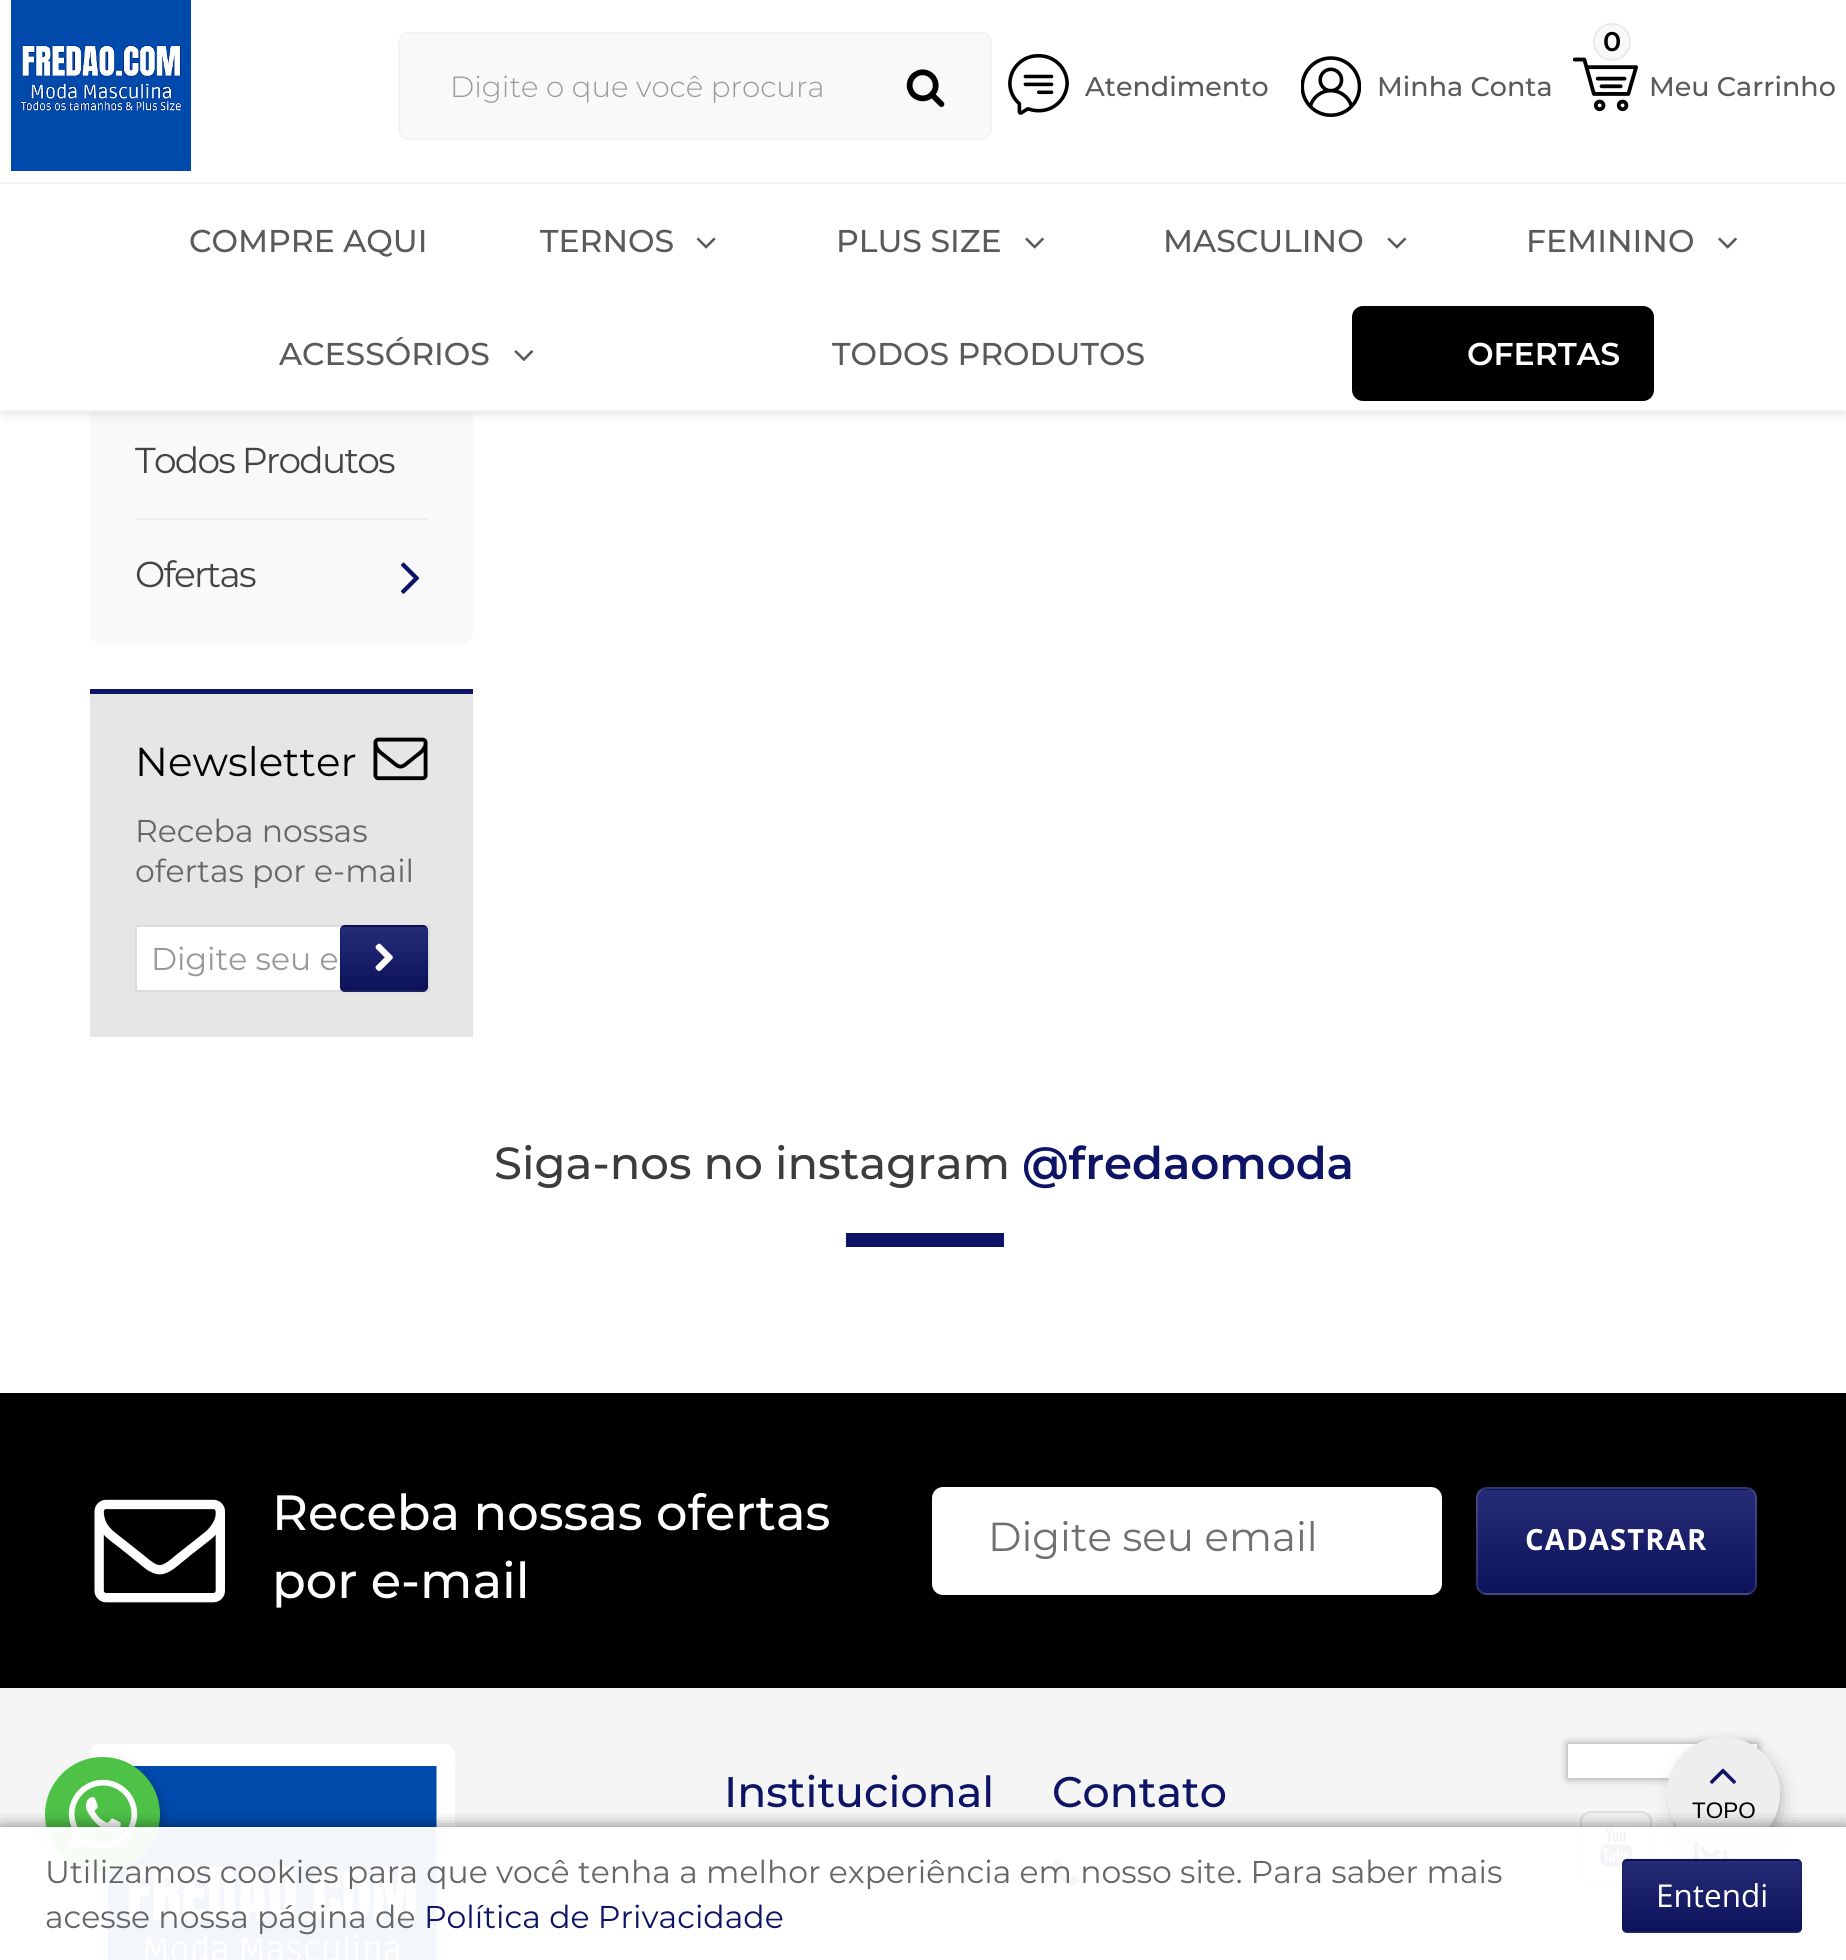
#include <cairo/cairo.h>
#include <math.h>
#include <stddef.h>


static void draw_spaced(cairo_t *cr, double x, double y, const char *s, double letter, double word) {
  cairo_move_to(cr, x, y);
  while (*s) {
    char ch[5] = {0};
    int n = 0;
    do ch[n++] = *s++; while ((*s & 0xC0) == 0x80);
    cairo_show_text(cr, ch);
    cairo_rel_move_to(cr, letter + word * (*ch == ' '), 0);
  }
}

static void rounded_rect(cairo_t *cr, double x, double y, double w, double h, double r) {
  cairo_new_sub_path(cr);
  cairo_arc(cr, x + w - r, y + h - r, r, 0, M_PI / 2);
  cairo_arc(cr, x + r, y + h - r, r, M_PI / 2, M_PI);
  cairo_arc(cr, x + r, y + r, r, M_PI, 1.5 * M_PI);
  cairo_arc(cr, x + w - r, y + r, r, 1.5 * M_PI, 2 * M_PI);
  cairo_close_path(cr);
}

static void draw_shadow(cairo_t *cr, double x, double y, double w, double h, double r, double blur, double alpha) {
  cairo_push_group_with_content(cr, CAIRO_CONTENT_ALPHA);
  cairo_set_operator(cr, CAIRO_OPERATOR_SOURCE);
  for (int i = 15; i >= -15 && fmin(w, h) + blur * i / 3 > 0; i -= 2) {
    double e = blur * i / 6;
    cairo_set_source_rgba(cr, 0, 0, 0, alpha * erfc((i - 1) / 8.5) / 2);
    rounded_rect(cr, x - e, y - e, w + 2 * e, h + 2 * e, fmax(0, fmin(r + e + blur * .6, fmin(w, h) / 2 + e)));
    cairo_fill(cr);
  }
  cairo_pattern_t *soft = cairo_pop_group(cr);
  cairo_mask(cr, soft);
  cairo_pattern_destroy(soft);
}

static void draw_image(cairo_t *cr, const char *path, double x, double y, double w, double h) {
  cairo_surface_t *image = cairo_image_surface_create_from_png(path);
  cairo_save(cr);
  cairo_set_source_surface(cr, image, x, y);
  cairo_rectangle(cr, x, y, w, h);
  cairo_fill(cr);
  cairo_restore(cr);
  cairo_surface_destroy(image);
}

static void draw(cairo_t *cr) {
  cairo_pattern_t *gradient;
  cairo_set_source_rgb(cr, 1, 1, 1);
  cairo_paint(cr);
  cairo_set_source_rgb(cr, 245 / 255.0, 245 / 255.0, 245 / 255.0);
  cairo_rectangle(cr, 0, 1688, 1846, 272);
  cairo_fill(cr);
  cairo_set_source_rgb(cr, 1, 1, 1);
  rounded_rect(cr, 90, 1744, 365, 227, 11);
  cairo_fill(cr);
  draw_image(cr, "images/15.png", 108, 1766, 329, 194);
  cairo_set_source_rgb(cr, 0, 0, 0);
  draw_shadow(cr, 50, 1762, 114, 115, 57, 4.5, 0.18);
  cairo_set_source_rgb(cr, 77 / 255.0, 194 / 255.0, 71 / 255.0);
  cairo_arc(cr, 102.5, 1814.5, 57.5, 0, 2 * M_PI);
  cairo_fill(cr);
  draw_image(cr, "images/1.png", 67, 1779, 71, 71);
  cairo_set_source_rgb(cr, 249 / 255.0, 249 / 255.0, 249 / 255.0);
  rounded_rect(cr, 90, -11, 383, 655, 11);
  cairo_fill(cr);
  cairo_set_source_rgb(cr, 0, 0, 0);
  draw_shadow(cr, 5, -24, 1838, 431, 0, 8, 0.3);
  cairo_set_source_rgb(cr, 1, 1, 1);
  cairo_rectangle(cr, 0, 0, 1846, 410);
  cairo_fill(cr);
  draw_image(cr, "images/2.png", 11, 0, 180, 171);
  cairo_set_source_rgb(cr, 249 / 255.0, 249 / 255.0, 249 / 255.0);
  rounded_rect(cr, 399, 33, 592, 106, 10);
  cairo_fill_preserve(cr);
  cairo_set_source_rgb(cr, 243 / 255.0, 243 / 255.0, 243 / 255.0);
  cairo_stroke(cr);
  draw_image(cr, "images/3.png", 906, 69, 39, 38);
  draw_image(cr, "images/4.png", 1008, 54, 61, 61);
  draw_image(cr, "images/5.png", 1301, 56, 60, 61);
  draw_image(cr, "images/6.png", 1573, 57, 65, 55);
  cairo_set_source_rgb(cr, 249 / 255.0, 249 / 255.0, 249 / 255.0);
  cairo_arc(cr, 1612, 42, 18, 0, 2 * M_PI);
  cairo_fill_preserve(cr);
  cairo_set_source_rgb(cr, 234 / 255.0, 234 / 255.0, 234 / 255.0);
  cairo_stroke(cr);
  cairo_set_source_rgb(cr, 242 / 255.0, 242 / 255.0, 242 / 255.0);
  cairo_rectangle(cr, 0, 182, 1846, 2);
  cairo_fill(cr);
  cairo_rectangle(cr, 0, 410, 1846, 2);
  cairo_fill(cr);
  draw_image(cr, "images/7.png", 696, 237, 20, 12);
  draw_image(cr, "images/8.png", 1025, 237, 19, 12);
  draw_image(cr, "images/9.png", 1387, 237, 20, 12);
  draw_image(cr, "images/8.png", 1718, 237, 19, 12);
  draw_image(cr, "images/10.png", 514, 350, 20, 11);
  cairo_set_source_rgb(cr, 0, 0, 0);
  rounded_rect(cr, 1352, 306, 302, 95, 11);
  cairo_fill(cr);
  cairo_set_source_rgb(cr, 239 / 255.0, 239 / 255.0, 239 / 255.0);
  cairo_rectangle(cr, 135, 518, 293, 2);
  cairo_fill(cr);
  draw_image(cr, "images/11.png", 400, 562, 20, 32);
  cairo_set_source_rgb(cr, 230 / 255.0, 230 / 255.0, 230 / 255.0);
  cairo_rectangle(cr, 90, 694, 383, 343);
  cairo_fill(cr);
  cairo_set_source_rgb(cr, 13 / 255.0, 20 / 255.0, 102 / 255.0);
  cairo_rectangle(cr, 90, 689, 383, 5);
  cairo_fill(cr);
  draw_image(cr, "images/12.png", 373, 737, 55, 44);
  cairo_set_source_rgb(cr, 1, 1, 1);
  cairo_rectangle(cr, 136, 926, 293, 65);
  cairo_fill_preserve(cr);
  cairo_set_source_rgb(cr, 220 / 255.0, 220 / 255.0, 220 / 255.0);
  cairo_stroke(cr);
  cairo_set_source_rgb(cr, 13 / 255.0, 20 / 255.0, 102 / 255.0);
  rounded_rect(cr, 340, 925, 88, 67, 5);
  cairo_fill(cr);
  cairo_save(cr);
  rounded_rect(cr, 340, 925, 88, 67, 5);
  cairo_clip(cr);
  gradient = cairo_pattern_create_linear(384, 864, 384, 927);
  cairo_pattern_add_color_stop_rgba(gradient, 0, 1, 1, 1, 0.1);
  cairo_pattern_add_color_stop_rgba(gradient, 1, 0, 0, 0, 0.1);
  cairo_set_source(cr, gradient);
  cairo_pattern_destroy(gradient);
  cairo_rectangle(cr, 340, 925, 88, 2);
  cairo_fill(cr);
  gradient = cairo_pattern_create_linear(384, 927, 384, 990);
  cairo_pattern_add_color_stop_rgba(gradient, 0, 1, 1, 1, 0.1);
  cairo_pattern_add_color_stop_rgba(gradient, 1, 0, 0, 0, 0.1);
  cairo_set_source(cr, gradient);
  cairo_pattern_destroy(gradient);
  cairo_rectangle(cr, 340, 927, 88, 63);
  cairo_fill(cr);
  gradient = cairo_pattern_create_linear(384, 990, 384, 1053);
  cairo_pattern_add_color_stop_rgba(gradient, 0, 1, 1, 1, 0.1);
  cairo_pattern_add_color_stop_rgba(gradient, 1, 0, 0, 0, 0.1);
  cairo_set_source(cr, gradient);
  cairo_pattern_destroy(gradient);
  cairo_rectangle(cr, 340, 990, 88, 2);
  cairo_fill(cr);
  cairo_restore(cr);
  cairo_new_path(cr);
  cairo_move_to(cr, 425.5, 990);
  cairo_line_to(cr, 423.5, 991);
  cairo_line_to(cr, 344, 991);
  cairo_line_to(cr, 342, 990);
  cairo_set_source_rgba(cr, 0, 0, 0, 0.2);
  cairo_set_line_width(cr, 2.2);
  cairo_stroke(cr);
  cairo_new_path(cr);
  cairo_move_to(cr, 342, 990);
  cairo_curve_to(cr, 339.5, 987.5, 341, 979, 341, 978);
  cairo_line_to(cr, 341, 939);
  cairo_curve_to(cr, 341, 922.5, 339.5, 926, 357.5, 926);
  cairo_line_to(cr, 410, 926);
  cairo_curve_to(cr, 427.5, 926, 426.5, 922.5, 426.5, 939);
  cairo_line_to(cr, 426.5, 978);
  cairo_curve_to(cr, 426.5, 979, 428, 987.5, 425.5, 990);
  cairo_set_source_rgba(cr, 0, 0, 0, 0.1);
  cairo_stroke(cr);
  draw_image(cr, "images/13.png", 375, 943, 18, 28);
  cairo_set_source_rgb(cr, 13 / 255.0, 20 / 255.0, 102 / 255.0);
  cairo_rectangle(cr, 846, 1233, 158, 14);
  cairo_fill(cr);
  cairo_set_source_rgb(cr, 0, 0, 0);
  cairo_rectangle(cr, 0, 1393, 1846, 295);
  cairo_fill(cr);
  draw_image(cr, "images/14.png", 94, 1499, 131, 104);
  cairo_set_source_rgb(cr, 1, 1, 1);
  rounded_rect(cr, 932, 1487, 510, 108, 11);
  cairo_fill(cr);
  cairo_set_source_rgb(cr, 13 / 255.0, 20 / 255.0, 102 / 255.0);
  rounded_rect(cr, 1476, 1487, 281, 108, 11);
  cairo_fill(cr);
  cairo_save(cr);
  rounded_rect(cr, 1476, 1487, 281, 108, 11);
  cairo_clip(cr);
  gradient = cairo_pattern_create_linear(1617, 1386, 1617, 1490);
  cairo_pattern_add_color_stop_rgba(gradient, 0, 1, 1, 1, 0.1);
  cairo_pattern_add_color_stop_rgba(gradient, 1, 0, 0, 0, 0.1);
  cairo_set_source(cr, gradient);
  cairo_pattern_destroy(gradient);
  cairo_rectangle(cr, 1476, 1487, 281, 3);
  cairo_fill(cr);
  gradient = cairo_pattern_create_linear(1617, 1490, 1617, 1593);
  cairo_pattern_add_color_stop_rgba(gradient, 0, 1, 1, 1, 0.1);
  cairo_pattern_add_color_stop_rgba(gradient, 1, 0, 0, 0, 0.1);
  cairo_set_source(cr, gradient);
  cairo_pattern_destroy(gradient);
  cairo_rectangle(cr, 1476, 1490, 281, 103);
  cairo_fill(cr);
  gradient = cairo_pattern_create_linear(1617, 1593, 1617, 1697);
  cairo_pattern_add_color_stop_rgba(gradient, 0, 1, 1, 1, 0.1);
  cairo_pattern_add_color_stop_rgba(gradient, 1, 0, 0, 0, 0.1);
  cairo_set_source(cr, gradient);
  cairo_pattern_destroy(gradient);
  cairo_rectangle(cr, 1476, 1593, 281, 2);
  cairo_fill(cr);
  cairo_restore(cr);
  rounded_rect(cr, 1477, 1488, 279, 106, 10);
  cairo_set_source_rgba(cr, 168 / 255.0, 168 / 255.0, 168 / 255.0, 0.23);
  cairo_set_line_width(cr, 2);
  cairo_stroke(cr);
  draw_image(cr, "images/16.png", 1053, 1859, 27, 27);
  cairo_set_source_rgb(cr, 0, 0, 0);
  draw_shadow(cr, 1568, 1744, 189, 34, 0, 4.5, 0.4);
  cairo_set_source_rgb(cr, 1, 1, 1);
  cairo_rectangle(cr, 1568, 1744, 189, 34);
  cairo_fill(cr);
  rounded_rect(cr, 1581, 1812, 70, 70, 10);
  cairo_set_source_rgb(cr, 221 / 255.0, 221 / 255.0, 221 / 255.0);
  cairo_stroke(cr);
  draw_image(cr, "images/17.png", 1600, 1827, 32, 40);
  rounded_rect(cr, 1675, 1812, 70, 70, 10);
  cairo_stroke(cr);
  draw_image(cr, "images/18.png", 1694, 1841, 34, 18);
  cairo_set_source_rgb(cr, 0, 0, 0);
  draw_shadow(cr, 1685, 1757, 86, 86, 43, 12.5, 0.64);
  cairo_set_source_rgb(cr, 238 / 255.0, 238 / 255.0, 238 / 255.0);
  cairo_arc(cr, 1723.5, 1793.5, 56.5, 0, 2 * M_PI);
  cairo_fill(cr);
  draw_image(cr, "images/19.png", 1709, 1768, 27, 16);
  cairo_save(cr);
  cairo_rectangle(cr, 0, 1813, 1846, 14);
  cairo_clip(cr);
  cairo_set_source_rgb(cr, 0, 0, 0);
  draw_shadow(cr, 0, 1827, 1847, 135, 0, 8, 0.5);
  cairo_restore(cr);
  cairo_set_source_rgba(cr, 1, 1, 1, 0.95);
  cairo_rectangle(cr, 0, 1827, 1846, 133);
  cairo_fill(cr);
  cairo_set_source_rgb(cr, 13 / 255.0, 20 / 255.0, 102 / 255.0);
  rounded_rect(cr, 1622, 1859, 180, 74, 5);
  cairo_fill(cr);
  cairo_save(cr);
  rounded_rect(cr, 1622, 1859, 180, 74, 5);
  cairo_clip(cr);
  gradient = cairo_pattern_create_linear(1712, 1791, 1712, 1861);
  cairo_pattern_add_color_stop_rgba(gradient, 0, 1, 1, 1, 0.1);
  cairo_pattern_add_color_stop_rgba(gradient, 1, 0, 0, 0, 0.1);
  cairo_set_source(cr, gradient);
  cairo_pattern_destroy(gradient);
  cairo_rectangle(cr, 1622, 1859, 180, 2);
  cairo_fill(cr);
  gradient = cairo_pattern_create_linear(1712, 1861, 1712, 1931);
  cairo_pattern_add_color_stop_rgba(gradient, 0, 1, 1, 1, 0.1);
  cairo_pattern_add_color_stop_rgba(gradient, 1, 0, 0, 0, 0.1);
  cairo_set_source(cr, gradient);
  cairo_pattern_destroy(gradient);
  cairo_rectangle(cr, 1622, 1861, 180, 70);
  cairo_fill(cr);
  gradient = cairo_pattern_create_linear(1712, 1931, 1712, 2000);
  cairo_pattern_add_color_stop_rgba(gradient, 0, 1, 1, 1, 0.1);
  cairo_pattern_add_color_stop_rgba(gradient, 1, 0, 0, 0, 0.1);
  cairo_set_source(cr, gradient);
  cairo_pattern_destroy(gradient);
  cairo_rectangle(cr, 1622, 1931, 180, 2);
  cairo_fill(cr);
  cairo_restore(cr);
  cairo_new_path(cr);
  cairo_move_to(cr, 1800, 1930.5);
  cairo_line_to(cr, 1798, 1931.5);
  cairo_line_to(cr, 1655, 1931.5);
  cairo_line_to(cr, 1627, 1931.5);
  cairo_line_to(cr, 1624.5, 1930.5);
  cairo_set_source_rgba(cr, 0, 0, 0, 0.2);
  cairo_set_line_width(cr, 2.2);
  cairo_stroke(cr);
  cairo_new_path(cr);
  cairo_move_to(cr, 1624.5, 1930.5);
  cairo_line_to(cr, 1623.5, 1928);
  cairo_line_to(cr, 1623.5, 1863);
  cairo_line_to(cr, 1624.5, 1860.5);
  cairo_line_to(cr, 1627, 1859.5);
  cairo_line_to(cr, 1798, 1859.5);
  cairo_line_to(cr, 1800, 1860.5);
  cairo_line_to(cr, 1801, 1863);
  cairo_line_to(cr, 1801, 1928);
  cairo_line_to(cr, 1800, 1930.5);
  cairo_set_source_rgba(cr, 0, 0, 0, 0.1);
  cairo_stroke(cr);
  cairo_select_font_face(cr, "Montserrat Light", CAIRO_FONT_SLANT_NORMAL, CAIRO_FONT_WEIGHT_NORMAL);
  cairo_set_font_size(cr, 29.25);
  cairo_set_source_rgb(cr, 153 / 255.0, 153 / 255.0, 153 / 255.0);
  cairo_move_to(cr, 450, 97);
  cairo_show_text(cr, "Digite o que você procura");
  cairo_select_font_face(cr, "Montserrat Medium", CAIRO_FONT_SLANT_NORMAL, CAIRO_FONT_WEIGHT_NORMAL);
  cairo_set_font_size(cr, 27);
  cairo_set_source_rgb(cr, 90 / 255.0, 90 / 255.0, 90 / 255.0);
  cairo_move_to(cr, 1085, 96);
  cairo_show_text(cr, "Atendimento");
  cairo_move_to(cr, 1377, 96);
  cairo_show_text(cr, "Minha Conta");
  cairo_select_font_face(cr, "Montserrat SemiBold", CAIRO_FONT_SLANT_NORMAL, CAIRO_FONT_WEIGHT_NORMAL);
  cairo_set_source_rgb(cr, 0, 0, 0);
  cairo_move_to(cr, 1603, 51);
  cairo_show_text(cr, "0");
  cairo_select_font_face(cr, "Montserrat Medium", CAIRO_FONT_SLANT_NORMAL, CAIRO_FONT_WEIGHT_NORMAL);
  cairo_set_source_rgb(cr, 90 / 255.0, 90 / 255.0, 90 / 255.0);
  cairo_move_to(cr, 1649, 96);
  cairo_show_text(cr, "Meu Carrinho");
  cairo_set_font_size(cr, 31.5);
  cairo_move_to(cr, 189, 252);
  cairo_show_text(cr, "COMPRE AQUI");
  cairo_move_to(cr, 540, 252);
  cairo_show_text(cr, "TERNOS");
  cairo_move_to(cr, 836, 252);
  cairo_show_text(cr, "PLUS SIZE");
  cairo_move_to(cr, 1163, 252);
  cairo_show_text(cr, "MASCULINO");
  cairo_move_to(cr, 1526, 252);
  cairo_show_text(cr, "FEMININO");
  cairo_move_to(cr, 279, 365);
  cairo_show_text(cr, "ACESSÓRIOS");
  cairo_move_to(cr, 832, 365);
  cairo_show_text(cr, "TODOS PRODUTOS");
  cairo_select_font_face(cr, "Montserrat SemiBold", CAIRO_FONT_SLANT_NORMAL, CAIRO_FONT_WEIGHT_NORMAL);
  cairo_set_source_rgb(cr, 1, 1, 1);
  cairo_move_to(cr, 1467, 365);
  cairo_show_text(cr, "OFERTAS");
  cairo_select_font_face(cr, "Montserrat", CAIRO_FONT_SLANT_NORMAL, CAIRO_FONT_WEIGHT_NORMAL);
  cairo_set_font_size(cr, 36);
  cairo_set_source_rgb(cr, 68 / 255.0, 68 / 255.0, 68 / 255.0);
  draw_spaced(cr, 135, 473, "Todos Produtos", -1.75, 0);
  draw_spaced(cr, 135, 587, "Ofertas", -1.75, 0);
  cairo_set_font_size(cr, 40.5);
  cairo_set_source_rgb(cr, 0, 0, 0);
  cairo_move_to(cr, 135, 776);
  cairo_show_text(cr, "Newsletter");
  cairo_set_font_size(cr, 31.5);
  cairo_set_source_rgb(cr, 102 / 255.0, 102 / 255.0, 102 / 255.0);
  cairo_move_to(cr, 135, 842);
  cairo_show_text(cr, "Receba nossas");
  cairo_move_to(cr, 135, 882);
  cairo_show_text(cr, "ofertas por e-mail");
  cairo_set_source_rgb(cr, 153 / 255.0, 153 / 255.0, 153 / 255.0);
  cairo_move_to(cr, 151, 970);
  cairo_show_text(cr, "Digite seu e");
  cairo_select_font_face(cr, "Montserrat Medium", CAIRO_FONT_SLANT_NORMAL, CAIRO_FONT_WEIGHT_NORMAL);
  cairo_set_font_size(cr, 45);
  cairo_set_source_rgb(cr, 62 / 255.0, 59 / 255.0, 59 / 255.0);
  cairo_move_to(cr, 494, 1179);
  cairo_show_text(cr, "Siga-nos no instagram");
  cairo_select_font_face(cr, "Montserrat SemiBold", CAIRO_FONT_SLANT_NORMAL, CAIRO_FONT_WEIGHT_NORMAL);
  cairo_set_source_rgb(cr, 13 / 255.0, 20 / 255.0, 102 / 255.0);
  cairo_move_to(cr, 1022, 1179);
  cairo_show_text(cr, "@fredaomoda");
  cairo_select_font_face(cr, "Montserrat Medium", CAIRO_FONT_SLANT_NORMAL, CAIRO_FONT_WEIGHT_NORMAL);
  cairo_set_font_size(cr, 49.5);
  cairo_set_source_rgb(cr, 1, 1, 1);
  cairo_move_to(cr, 272, 1530);
  cairo_show_text(cr, "Receba nossas ofertas");
  cairo_move_to(cr, 272, 1598);
  cairo_show_text(cr, "por e-mail");
  cairo_select_font_face(cr, "Montserrat", CAIRO_FONT_SLANT_NORMAL, CAIRO_FONT_WEIGHT_NORMAL);
  cairo_set_font_size(cr, 40.5);
  cairo_set_source_rgb(cr, 112 / 255.0, 112 / 255.0, 112 / 255.0);
  cairo_move_to(cr, 988, 1551);
  cairo_show_text(cr, "Digite seu email");
  cairo_select_font_face(cr, "Open Sans", CAIRO_FONT_SLANT_NORMAL, CAIRO_FONT_WEIGHT_BOLD);
  cairo_set_font_size(cr, 29.25);
  cairo_set_source_rgb(cr, 1, 1, 1);
  draw_spaced(cr, 1525, 1550, "CADASTRAR", 1.1, 0);
  cairo_select_font_face(cr, "Montserrat Medium", CAIRO_FONT_SLANT_NORMAL, CAIRO_FONT_WEIGHT_NORMAL);
  cairo_set_font_size(cr, 42.75);
  cairo_set_source_rgb(cr, 13 / 255.0, 20 / 255.0, 102 / 255.0);
  cairo_move_to(cr, 724, 1807);
  cairo_show_text(cr, "Institucional");
  cairo_move_to(cr, 1052, 1807);
  cairo_show_text(cr, "Contato");
  cairo_select_font_face(cr, "Liberation Sans", CAIRO_FONT_SLANT_NORMAL, CAIRO_FONT_WEIGHT_NORMAL);
  cairo_set_font_size(cr, 22.5);
  cairo_set_source_rgb(cr, 0, 0, 0);
  cairo_move_to(cr, 1692, 1818);
  cairo_show_text(cr, "TOPO");
  cairo_select_font_face(cr, "Montserrat", CAIRO_FONT_SLANT_NORMAL, CAIRO_FONT_WEIGHT_NORMAL);
  cairo_set_font_size(cr, 31.5);
  cairo_set_source_rgb(cr, 102 / 255.0, 102 / 255.0, 102 / 255.0);
  cairo_move_to(cr, 45, 1883);
  cairo_show_text(cr, "Utilizamos cookies para que você tenha a melhor experiência em nosso site. Para saber mais");
  cairo_move_to(cr, 45, 1928);
  cairo_show_text(cr, "acesse nossa página de");
  cairo_set_source_rgb(cr, 13 / 255.0, 20 / 255.0, 102 / 255.0);
  cairo_move_to(cr, 424, 1928);
  cairo_show_text(cr, "Política de Privacidade");
  cairo_select_font_face(cr, "Open Sans", CAIRO_FONT_SLANT_NORMAL, CAIRO_FONT_WEIGHT_NORMAL);
  cairo_set_source_rgb(cr, 1, 1, 1);
  cairo_move_to(cr, 1656, 1907);
  cairo_show_text(cr, "Entendi");
}

int main(void) {
  cairo_surface_t *surface = cairo_image_surface_create(CAIRO_FORMAT_RGB24, 1846, 1960);
  cairo_t *cr = cairo_create(surface);
  cairo_font_options_t *options = cairo_font_options_create();
  cairo_font_options_set_hint_metrics(options, CAIRO_HINT_METRICS_OFF);
  cairo_font_options_set_hint_style(options, CAIRO_HINT_STYLE_NONE);
  cairo_set_font_options(cr, options);
  cairo_set_miter_limit(cr, 4);
  draw(cr);
  cairo_surface_write_to_png(surface, "out.png");
  cairo_font_options_destroy(options);
  cairo_destroy(cr);
  cairo_surface_destroy(surface);
  return 0;
}
